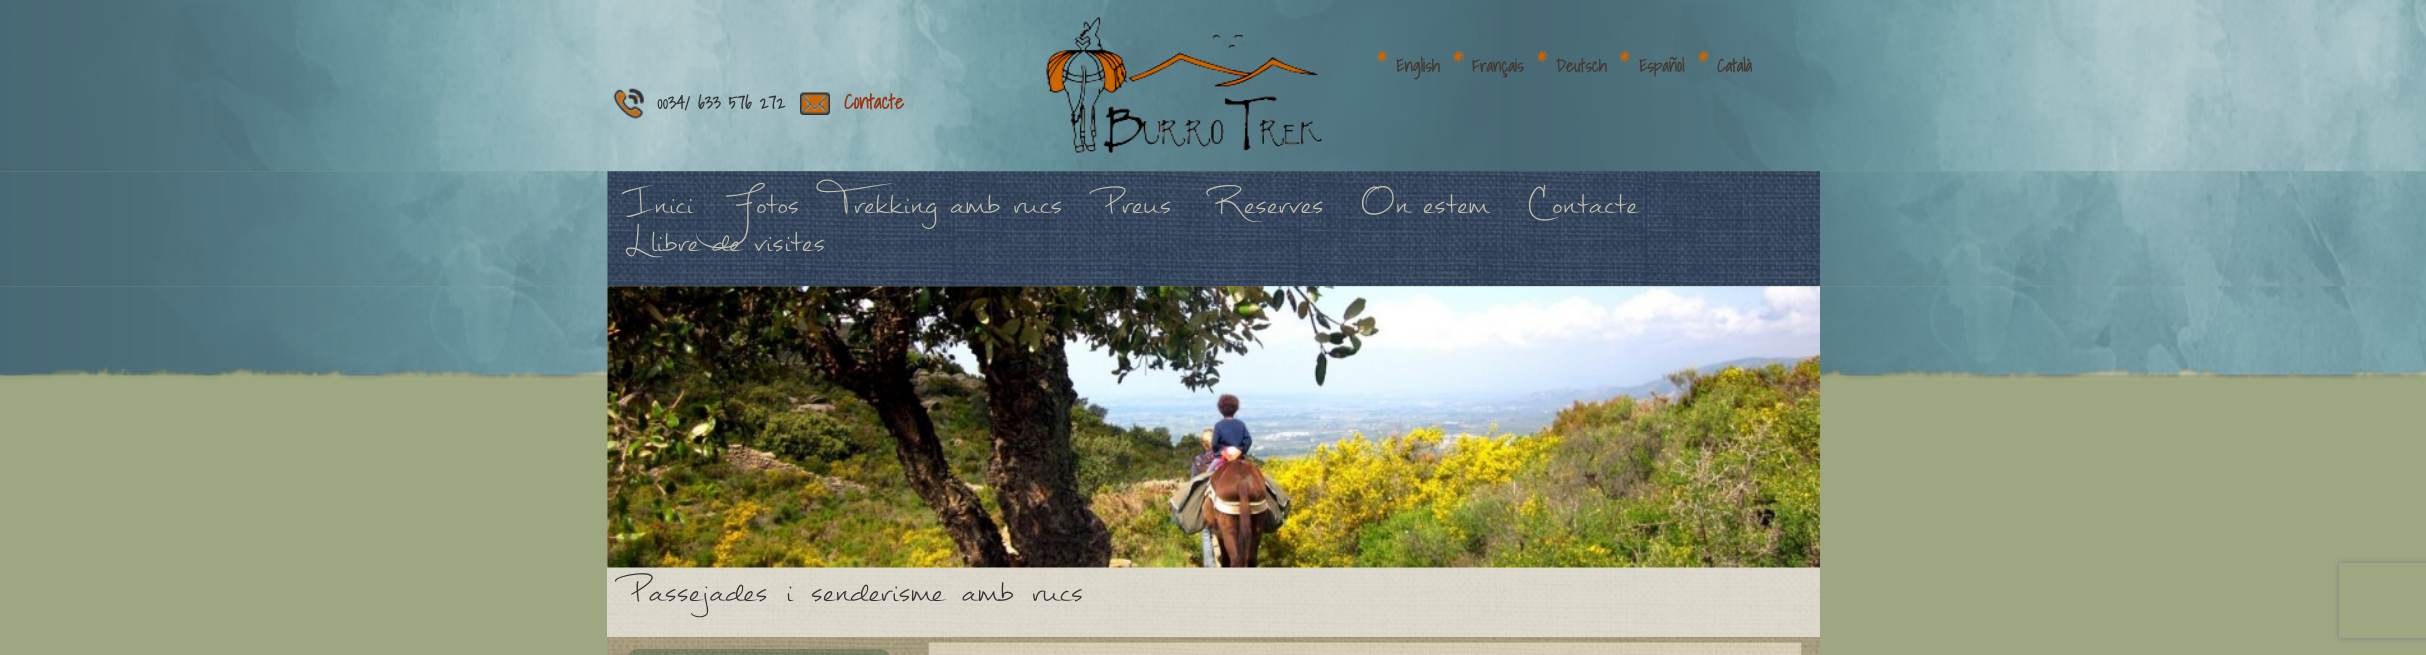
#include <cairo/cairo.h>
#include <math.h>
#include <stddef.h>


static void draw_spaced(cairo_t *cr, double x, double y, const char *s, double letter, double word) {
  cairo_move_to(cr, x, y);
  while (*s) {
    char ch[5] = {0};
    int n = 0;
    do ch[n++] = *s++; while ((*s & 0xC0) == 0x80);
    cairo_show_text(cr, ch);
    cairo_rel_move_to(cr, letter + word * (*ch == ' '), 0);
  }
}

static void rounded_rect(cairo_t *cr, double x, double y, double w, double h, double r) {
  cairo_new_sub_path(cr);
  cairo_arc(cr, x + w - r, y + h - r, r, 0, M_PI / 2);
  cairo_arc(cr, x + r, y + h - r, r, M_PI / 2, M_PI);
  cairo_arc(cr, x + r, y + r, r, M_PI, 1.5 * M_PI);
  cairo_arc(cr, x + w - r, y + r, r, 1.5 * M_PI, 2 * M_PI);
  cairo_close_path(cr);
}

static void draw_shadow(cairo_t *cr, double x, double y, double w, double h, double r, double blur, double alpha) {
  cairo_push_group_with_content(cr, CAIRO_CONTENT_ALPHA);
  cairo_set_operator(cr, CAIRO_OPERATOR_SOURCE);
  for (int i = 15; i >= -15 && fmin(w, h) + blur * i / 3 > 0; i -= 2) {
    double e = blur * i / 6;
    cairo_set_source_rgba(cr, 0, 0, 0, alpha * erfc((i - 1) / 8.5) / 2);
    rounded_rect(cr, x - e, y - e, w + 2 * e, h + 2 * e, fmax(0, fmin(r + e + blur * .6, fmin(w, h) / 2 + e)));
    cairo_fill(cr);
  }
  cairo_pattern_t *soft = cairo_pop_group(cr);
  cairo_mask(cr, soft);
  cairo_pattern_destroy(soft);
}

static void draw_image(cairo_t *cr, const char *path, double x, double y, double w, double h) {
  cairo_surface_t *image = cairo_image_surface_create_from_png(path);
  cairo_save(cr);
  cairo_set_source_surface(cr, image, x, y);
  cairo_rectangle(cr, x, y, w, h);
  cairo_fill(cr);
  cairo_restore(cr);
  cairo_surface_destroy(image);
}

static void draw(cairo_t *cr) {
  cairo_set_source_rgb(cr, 157 / 255.0, 167 / 255.0, 130 / 255.0);
  cairo_paint(cr);
  draw_image(cr, "images/1.png", 0, 0, 2426, 172);
  draw_image(cr, "images/2.png", 1046, 17, 276, 136);
  draw_image(cr, "images/3.png", 1376, 50, 12, 13);
  draw_image(cr, "images/4.png", 1452, 50, 12, 13);
  draw_image(cr, "images/5.png", 1536, 50, 12, 13);
  draw_image(cr, "images/6.png", 1619, 50, 12, 13);
  draw_image(cr, "images/7.png", 1697, 50, 12, 13);
  draw_image(cr, "images/8.png", 613, 88, 31, 31);
  draw_image(cr, "images/9.png", 800, 92, 30, 23);
  draw_image(cr, "images/10.png", 0, 171, 2426, 116);
  draw_image(cr, "images/11.png", 607, 171, 1213, 116);
  draw_image(cr, "images/12.png", 0, 286, 2426, 94);
  draw_image(cr, "images/13.png", 607, 286, 1213, 369);
  cairo_set_source_rgba(cr, 1, 1, 1, 0.6);
  cairo_rectangle(cr, 607, 567, 1213, 70);
  cairo_fill(cr);
  draw_image(cr, "images/14.png", 607, 286, 1213, 282);
  draw_image(cr, "images/15.png", 628, 648, 262, 7);
  draw_image(cr, "images/16.png", 928, 642, 874, 13);
  cairo_save(cr);
  cairo_set_fill_rule(cr, CAIRO_FILL_RULE_EVEN_ODD);
  cairo_new_path(cr);
  cairo_move_to(cr, 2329, 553);
  cairo_line_to(cr, 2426, 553);
  cairo_line_to(cr, 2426, 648);
  cairo_line_to(cr, 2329, 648);
  cairo_close_path(cr);
  cairo_move_to(cr, 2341.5, 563);
  cairo_line_to(cr, 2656.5, 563);
  cairo_curve_to(cr, 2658, 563, 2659, 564, 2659, 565.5);
  cairo_line_to(cr, 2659, 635.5);
  cairo_curve_to(cr, 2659, 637, 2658, 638, 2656.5, 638);
  cairo_line_to(cr, 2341.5, 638);
  cairo_curve_to(cr, 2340, 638, 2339, 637, 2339, 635.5);
  cairo_line_to(cr, 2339, 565.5);
  cairo_curve_to(cr, 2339, 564, 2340, 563, 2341.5, 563);
  cairo_close_path(cr);
  cairo_clip(cr);
  cairo_set_source_rgb(cr, 128 / 255.0, 128 / 255.0, 128 / 255.0);
  draw_shadow(cr, 2339, 563, 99, 75, 2.5, 3, 1);
  cairo_restore(cr);
  cairo_select_font_face(cr, "Shadows Into Light", CAIRO_FONT_SLANT_NORMAL, CAIRO_FONT_WEIGHT_BOLD);
  cairo_set_font_size(cr, 17.5);
  cairo_set_source_rgb(cr, 68 / 255.0, 57 / 255.0, 48 / 255.0);
  cairo_move_to(cr, 1396, 72);
  cairo_show_text(cr, "English");
  cairo_move_to(cr, 1472, 72);
  cairo_show_text(cr, "Français");
  cairo_move_to(cr, 1556, 72);
  cairo_show_text(cr, "Deutsch");
  cairo_move_to(cr, 1639, 72);
  cairo_show_text(cr, "Español");
  cairo_move_to(cr, 1717, 72);
  cairo_show_text(cr, "Català");
  cairo_set_source_rgb(cr, 51 / 255.0, 51 / 255.0, 51 / 255.0);
  cairo_move_to(cr, 657, 109);
  cairo_show_text(cr, "0034/ 633 576 272");
  cairo_set_font_size(cr, 20);
  cairo_set_source_rgb(cr, 154 / 255.0, 49 / 255.0, 10 / 255.0);
  cairo_move_to(cr, 844, 109);
  cairo_show_text(cr, "Contacte");
  cairo_select_font_face(cr, "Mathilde", CAIRO_FONT_SLANT_NORMAL, CAIRO_FONT_WEIGHT_NORMAL);
  cairo_set_font_size(cr, 60);
  cairo_set_source_rgb(cr, 195 / 255.0, 192 / 255.0, 173 / 255.0);
  cairo_move_to(cr, 626, 213);
  cairo_show_text(cr, "Inici");
  cairo_move_to(cr, 730, 213);
  cairo_show_text(cr, "Fotos");
  draw_spaced(cr, 837, 213, "Trekking amb rucs", 0, -5);
  cairo_move_to(cr, 1100, 213);
  cairo_show_text(cr, "Preus");
  cairo_move_to(cr, 1209, 213);
  cairo_show_text(cr, "Reserves");
  draw_spaced(cr, 1361, 213, "On estem", 0, -5);
  cairo_move_to(cr, 1526, 213);
  cairo_show_text(cr, "Contacte");
  draw_spaced(cr, 626, 251, "Llibre de visites", 0, -5);
  cairo_set_font_size(cr, 62.5);
  cairo_set_source_rgb(cr, 51 / 255.0, 51 / 255.0, 51 / 255.0);
  draw_spaced(cr, 626, 601, "Passejades i senderisme amb rucs", 0, -0.5);
}

int main(void) {
  cairo_surface_t *surface = cairo_image_surface_create(CAIRO_FORMAT_RGB24, 2426, 655);
  cairo_t *cr = cairo_create(surface);
  cairo_font_options_t *options = cairo_font_options_create();
  cairo_font_options_set_hint_metrics(options, CAIRO_HINT_METRICS_OFF);
  cairo_font_options_set_hint_style(options, CAIRO_HINT_STYLE_NONE);
  cairo_set_font_options(cr, options);
  cairo_set_miter_limit(cr, 4);
  draw(cr);
  cairo_surface_write_to_png(surface, "out.png");
  cairo_font_options_destroy(options);
  cairo_destroy(cr);
  cairo_surface_destroy(surface);
  return 0;
}
